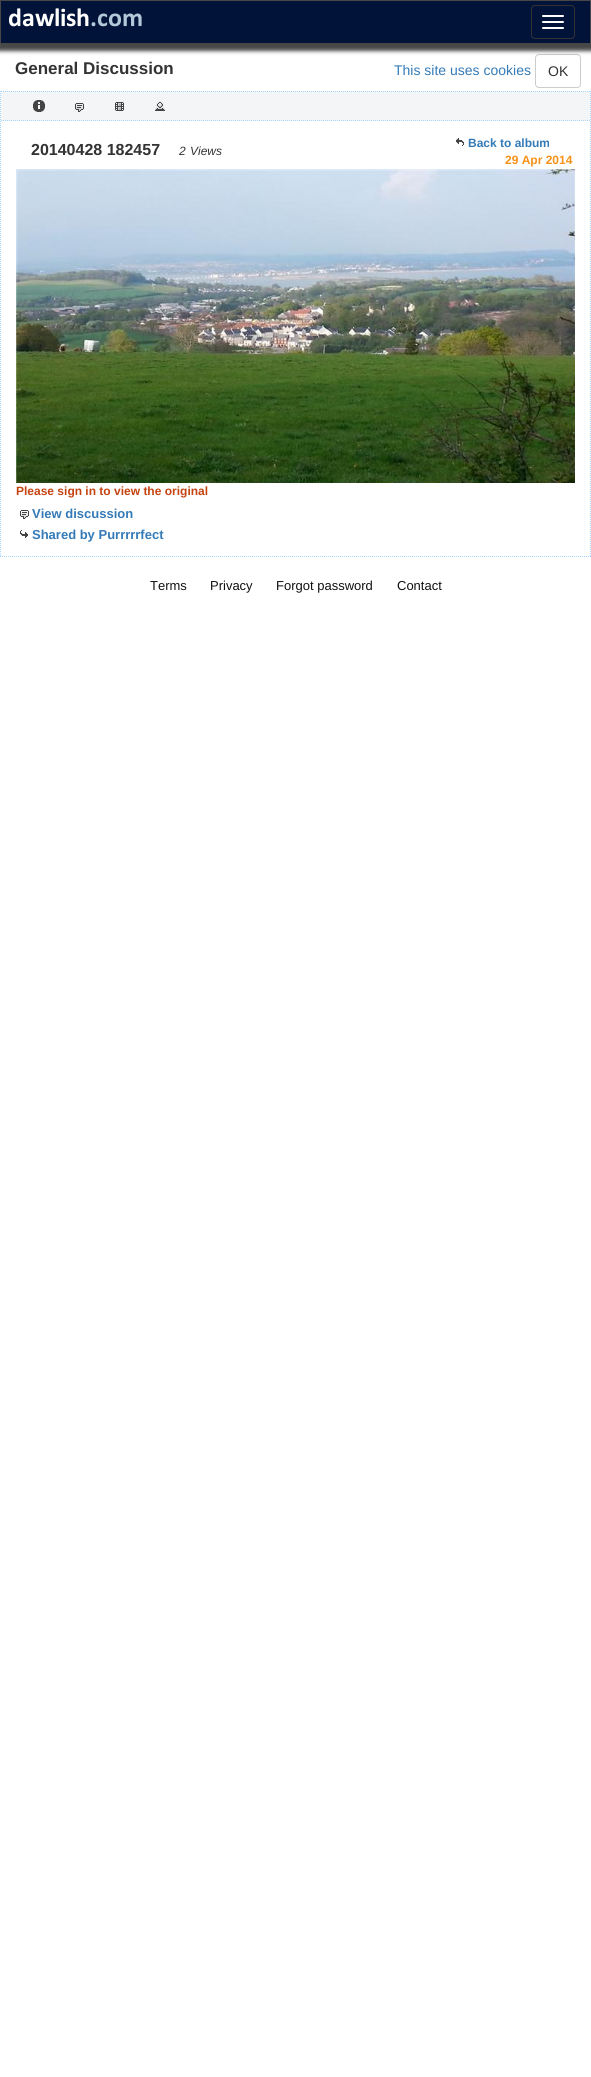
#include <cairo/cairo.h>
#include <math.h>
#include <stddef.h>


static void rounded_rect(cairo_t *cr, double x, double y, double w, double h, double r) {
  cairo_new_sub_path(cr);
  cairo_arc(cr, x + w - r, y + h - r, r, 0, M_PI / 2);
  cairo_arc(cr, x + r, y + h - r, r, M_PI / 2, M_PI);
  cairo_arc(cr, x + r, y + r, r, M_PI, 1.5 * M_PI);
  cairo_arc(cr, x + w - r, y + r, r, 1.5 * M_PI, 2 * M_PI);
  cairo_close_path(cr);
}

static void draw_shadow(cairo_t *cr, double x, double y, double w, double h, double r, double blur, double alpha) {
  cairo_push_group_with_content(cr, CAIRO_CONTENT_ALPHA);
  cairo_set_operator(cr, CAIRO_OPERATOR_SOURCE);
  for (int i = 15; i >= -15 && fmin(w, h) + blur * i / 3 > 0; i -= 2) {
    double e = blur * i / 6;
    cairo_set_source_rgba(cr, 0, 0, 0, alpha * erfc((i - 1) / 8.5) / 2);
    rounded_rect(cr, x - e, y - e, w + 2 * e, h + 2 * e, fmax(0, fmin(r + e + blur * .6, fmin(w, h) / 2 + e)));
    cairo_fill(cr);
  }
  cairo_pattern_t *soft = cairo_pop_group(cr);
  cairo_mask(cr, soft);
  cairo_pattern_destroy(soft);
}

static void draw_image(cairo_t *cr, const char *path, double x, double y, double w, double h) {
  cairo_surface_t *image = cairo_image_surface_create_from_png(path);
  cairo_save(cr);
  cairo_set_source_surface(cr, image, x, y);
  cairo_rectangle(cr, x, y, w, h);
  cairo_fill(cr);
  cairo_restore(cr);
  cairo_surface_destroy(image);
}

static void draw(cairo_t *cr) {
  cairo_set_source_rgb(cr, 1, 1, 1);
  cairo_paint(cr);
  rounded_rect(cr, 535.5, 54.5, 45, 33, 3.5);
  cairo_set_source_rgb(cr, 204 / 255.0, 204 / 255.0, 204 / 255.0);
  cairo_set_line_width(cr, 1);
  cairo_stroke(cr);
  cairo_set_source_rgb(cr, 70 / 255.0, 71 / 255.0, 70 / 255.0);
  draw_shadow(cr, -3, -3, 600, 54, 0, 2, 1);
  cairo_set_source_rgb(cr, 1 / 255.0, 19 / 255.0, 57 / 255.0);
  cairo_rectangle(cr, 0.5, 0.5, 590, 43);
  cairo_fill_preserve(cr);
  cairo_set_source_rgb(cr, 70 / 255.0, 71 / 255.0, 70 / 255.0);
  cairo_stroke(cr);
  draw_image(cr, "images/1.png", 8, 8, 134, 19);
  rounded_rect(cr, 531.5, 5.5, 43, 33, 3.5);
  cairo_set_source_rgb(cr, 51 / 255.0, 51 / 255.0, 51 / 255.0);
  cairo_stroke(cr);
  cairo_set_source_rgb(cr, 1, 1, 1);
  rounded_rect(cr, 542, 15, 22, 2, 1);
  cairo_fill(cr);
  rounded_rect(cr, 542, 21, 22, 2, 1);
  cairo_fill(cr);
  rounded_rect(cr, 542, 27, 22, 2, 1);
  cairo_fill(cr);
  cairo_new_path(cr);
  cairo_move_to(cr, 590.5, 91);
  cairo_line_to(cr, 590.5, 557);
  cairo_set_source_rgb(cr, 169 / 255.0, 214 / 255.0, 1);
  cairo_set_dash(cr, (double[]){1, 1}, 2, 0);
  cairo_stroke(cr);
  cairo_new_path(cr);
  cairo_move_to(cr, 0, 556.5);
  cairo_line_to(cr, 591, 556.5);
  cairo_stroke(cr);
  cairo_new_path(cr);
  cairo_move_to(cr, 0.5, 91);
  cairo_line_to(cr, 0.5, 557);
  cairo_stroke(cr);
  cairo_set_source_rgb(cr, 243 / 255.0, 245 / 255.0, 246 / 255.0);
  cairo_rectangle(cr, 1, 91, 589, 30);
  cairo_fill(cr);
  cairo_new_path(cr);
  cairo_move_to(cr, 1, 91.5);
  cairo_line_to(cr, 590, 91.5);
  cairo_set_source_rgb(cr, 169 / 255.0, 214 / 255.0, 1);
  cairo_stroke(cr);
  cairo_new_path(cr);
  cairo_move_to(cr, 1, 120.5);
  cairo_line_to(cr, 590, 120.5);
  cairo_stroke(cr);
  draw_image(cr, "images/2.png", 33, 100, 12, 12);
  draw_image(cr, "images/3.png", 75, 103, 9, 9);
  draw_image(cr, "images/4.png", 115, 102, 9, 9);
  draw_image(cr, "images/5.png", 155, 101, 10, 10);
  draw_image(cr, "images/6.png", 456, 138, 8, 8);
  draw_image(cr, "images/7.png", 16, 169, 559, 314);
  draw_image(cr, "images/8.png", 20, 510, 9, 9);
  draw_image(cr, "images/9.png", 20, 530, 8, 8);
  cairo_select_font_face(cr, "Liberation Sans", CAIRO_FONT_SLANT_NORMAL, CAIRO_FONT_WEIGHT_BOLD);
  cairo_set_font_size(cr, 17);
  cairo_set_source_rgb(cr, 51 / 255.0, 51 / 255.0, 51 / 255.0);
  cairo_move_to(cr, 15, 74);
  cairo_show_text(cr, "General Discussion");
  cairo_set_font_size(cr, 16);
  cairo_move_to(cr, 31, 155);
  cairo_show_text(cr, "20140428 182457");
  cairo_select_font_face(cr, "Liberation Sans", CAIRO_FONT_SLANT_ITALIC, CAIRO_FONT_WEIGHT_NORMAL);
  cairo_set_font_size(cr, 12);
  cairo_move_to(cr, 179, 155);
  cairo_show_text(cr, "2");
  cairo_move_to(cr, 190, 155);
  cairo_show_text(cr, "Views");
  cairo_select_font_face(cr, "Liberation Sans", CAIRO_FONT_SLANT_NORMAL, CAIRO_FONT_WEIGHT_BOLD);
  cairo_set_source_rgb(cr, 51 / 255.0, 122 / 255.0, 183 / 255.0);
  cairo_move_to(cr, 468, 147);
  cairo_show_text(cr, "Back to album");
  cairo_set_source_rgb(cr, 246 / 255.0, 145 / 255.0, 23 / 255.0);
  cairo_move_to(cr, 505, 164);
  cairo_show_text(cr, "29 Apr 2014");
  cairo_set_source_rgb(cr, 196 / 255.0, 67 / 255.0, 17 / 255.0);
  cairo_move_to(cr, 16, 495);
  cairo_show_text(cr, "Please sign in to view the original");
  cairo_set_font_size(cr, 13);
  cairo_set_source_rgb(cr, 51 / 255.0, 122 / 255.0, 183 / 255.0);
  cairo_move_to(cr, 32, 518);
  cairo_show_text(cr, "View discussion");
  cairo_move_to(cr, 32, 539);
  cairo_show_text(cr, "Shared by Purrrrrfect");
  cairo_select_font_face(cr, "Liberation Sans", CAIRO_FONT_SLANT_NORMAL, CAIRO_FONT_WEIGHT_NORMAL);
  cairo_set_source_rgb(cr, 16 / 255.0, 16 / 255.0, 16 / 255.0);
  cairo_move_to(cr, 150, 590);
  cairo_show_text(cr, "Terms");
  cairo_move_to(cr, 210, 590);
  cairo_show_text(cr, "Privacy");
  cairo_move_to(cr, 276, 590);
  cairo_show_text(cr, "Forgot password");
  cairo_move_to(cr, 397, 590);
  cairo_show_text(cr, "Contact");
  cairo_set_font_size(cr, 14);
  cairo_set_source_rgb(cr, 51 / 255.0, 122 / 255.0, 183 / 255.0);
  cairo_move_to(cr, 394, 75);
  cairo_show_text(cr, "This site uses cookies");
  cairo_set_source_rgb(cr, 51 / 255.0, 51 / 255.0, 51 / 255.0);
  cairo_move_to(cr, 548, 76);
  cairo_show_text(cr, "OK");
}

int main(void) {
  cairo_surface_t *surface = cairo_image_surface_create(CAIRO_FORMAT_RGB24, 591, 2077);
  cairo_t *cr = cairo_create(surface);
  cairo_font_options_t *options = cairo_font_options_create();
  cairo_font_options_set_hint_metrics(options, CAIRO_HINT_METRICS_OFF);
  cairo_font_options_set_hint_style(options, CAIRO_HINT_STYLE_NONE);
  cairo_set_font_options(cr, options);
  cairo_set_miter_limit(cr, 4);
  draw(cr);
  cairo_surface_write_to_png(surface, "out.png");
  cairo_font_options_destroy(options);
  cairo_destroy(cr);
  cairo_surface_destroy(surface);
  return 0;
}
